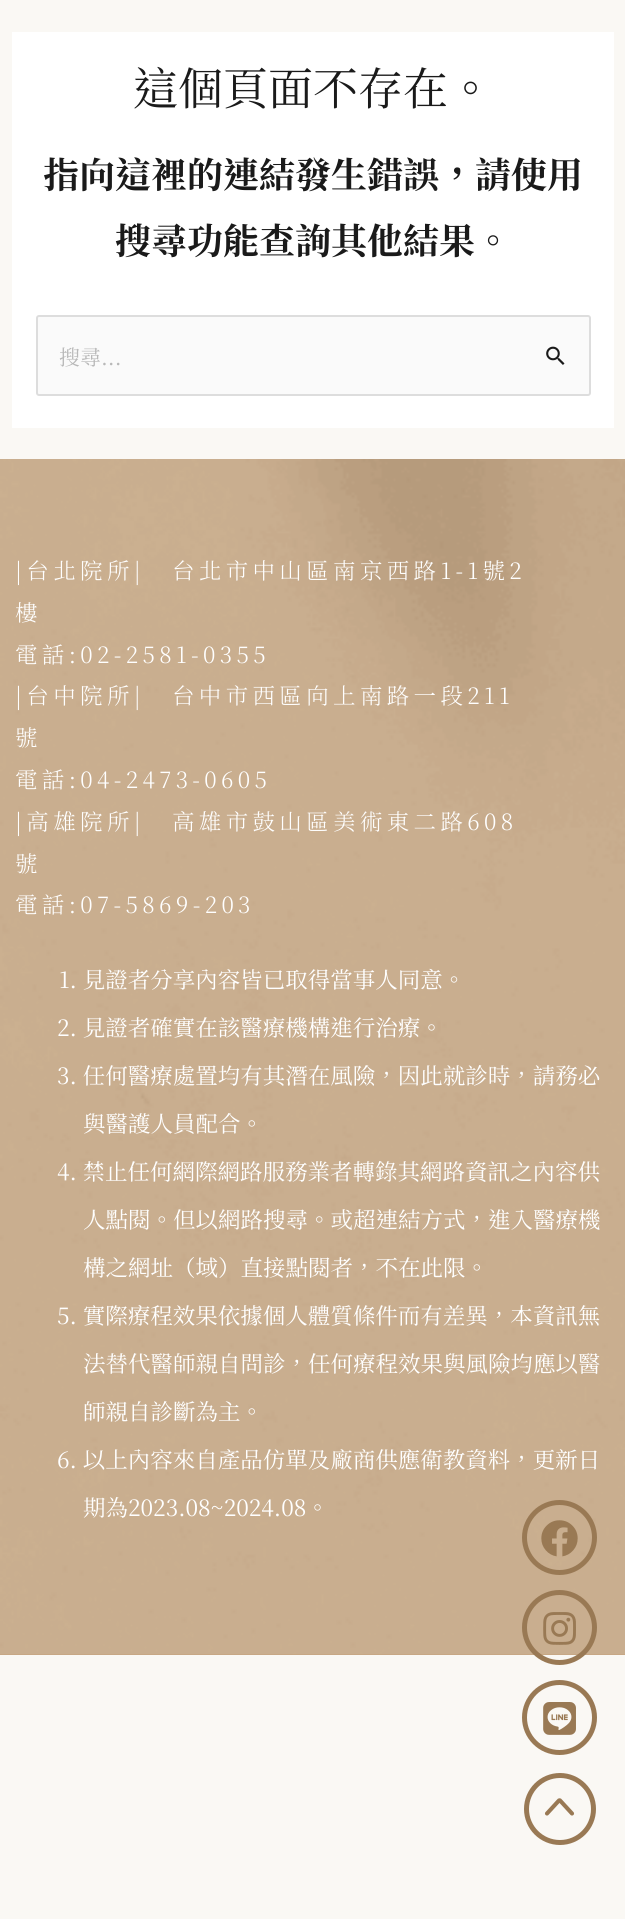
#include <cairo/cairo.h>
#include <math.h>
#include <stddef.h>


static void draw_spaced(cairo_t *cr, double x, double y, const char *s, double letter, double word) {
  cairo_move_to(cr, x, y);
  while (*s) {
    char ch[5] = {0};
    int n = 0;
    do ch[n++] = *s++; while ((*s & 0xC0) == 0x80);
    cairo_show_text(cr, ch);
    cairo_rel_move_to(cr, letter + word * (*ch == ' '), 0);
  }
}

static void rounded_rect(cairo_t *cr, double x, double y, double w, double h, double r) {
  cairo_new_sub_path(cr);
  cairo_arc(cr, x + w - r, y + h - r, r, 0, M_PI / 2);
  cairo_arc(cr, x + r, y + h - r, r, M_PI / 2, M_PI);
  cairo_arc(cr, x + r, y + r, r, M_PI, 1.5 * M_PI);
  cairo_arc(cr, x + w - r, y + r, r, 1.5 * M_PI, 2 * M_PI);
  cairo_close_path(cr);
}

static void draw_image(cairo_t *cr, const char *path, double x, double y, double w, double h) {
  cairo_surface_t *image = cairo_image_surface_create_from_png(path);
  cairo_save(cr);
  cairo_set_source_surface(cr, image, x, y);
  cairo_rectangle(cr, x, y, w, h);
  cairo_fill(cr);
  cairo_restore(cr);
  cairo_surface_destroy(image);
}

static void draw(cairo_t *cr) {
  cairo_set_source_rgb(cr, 250 / 255.0, 248 / 255.0, 244 / 255.0);
  cairo_paint(cr);
  cairo_set_source_rgb(cr, 1, 1, 1);
  cairo_rectangle(cr, 12, 32, 602, 396);
  cairo_fill(cr);
  cairo_set_source_rgb(cr, 250 / 255.0, 250 / 255.0, 250 / 255.0);
  rounded_rect(cr, 37, 316, 553, 79, 2);
  cairo_fill_preserve(cr);
  cairo_set_source_rgb(cr, 221 / 255.0, 221 / 255.0, 221 / 255.0);
  cairo_stroke(cr);
  draw_image(cr, "images/1.png", 546, 346, 19, 19);
  cairo_set_source_rgb(cr, 196 / 255.0, 161 / 255.0, 121 / 255.0);
  cairo_rectangle(cr, 0, 459, 625, 1196);
  cairo_fill(cr);
  draw_image(cr, "images/2.png", 0, 459, 625, 1196);
  cairo_arc(cr, 559.5, 1537.5, 35, 0, 2 * M_PI);
  cairo_set_source_rgb(cr, 153 / 255.0, 121 / 255.0, 84 / 255.0);
  cairo_set_line_width(cr, 5);
  cairo_stroke(cr);
  draw_image(cr, "images/3.png", 541, 1520, 37, 37);
  cairo_arc(cr, 559.5, 1627.5, 35, 0, 2 * M_PI);
  cairo_stroke(cr);
  draw_image(cr, "images/4.png", 543, 1612, 33, 33);
  cairo_arc(cr, 559.5, 1717.5, 35, 0, 2 * M_PI);
  cairo_stroke(cr);
  draw_image(cr, "images/5.png", 543, 1702, 33, 33);
  cairo_arc(cr, 560, 1809, 33.5, 0, 2 * M_PI);
  cairo_stroke(cr);
  cairo_new_path(cr);
  cairo_move_to(cr, 572, 1813.5);
  cairo_line_to(cr, 560.5, 1801);
  cairo_curve_to(cr, 560, 1800, 559, 1800, 558.5, 1801);
  cairo_line_to(cr, 547, 1813.5);
  cairo_set_line_width(cr, 4.1);
  cairo_set_line_cap(cr, CAIRO_LINE_CAP_ROUND);
  cairo_stroke(cr);
  cairo_select_font_face(cr, "Noto Serif TC", CAIRO_FONT_SLANT_NORMAL, CAIRO_FONT_WEIGHT_NORMAL);
  cairo_set_font_size(cr, 45);
  cairo_set_source_rgb(cr, 26 / 255.0, 26 / 255.0, 26 / 255.0);
  cairo_move_to(cr, 133, 105);
  cairo_show_text(cr, "這個頁面不存在。");
  cairo_select_font_face(cr, "Noto Serif TC", CAIRO_FONT_SLANT_NORMAL, CAIRO_FONT_WEIGHT_BOLD);
  cairo_set_font_size(cr, 36);
  cairo_move_to(cr, 43, 188);
  cairo_show_text(cr, "指向這裡的連結發生錯誤，請使用");
  cairo_move_to(cr, 115, 254);
  cairo_show_text(cr, "搜尋功能查詢其他結果。");
  cairo_select_font_face(cr, "Noto Serif TC", CAIRO_FONT_SLANT_NORMAL, CAIRO_FONT_WEIGHT_NORMAL);
  cairo_set_font_size(cr, 21);
  cairo_set_source_rgb(cr, 184 / 255.0, 184 / 255.0, 184 / 255.0);
  cairo_move_to(cr, 59, 365);
  cairo_show_text(cr, "搜尋...");
  cairo_select_font_face(cr, "Noto Serif TC Light", CAIRO_FONT_SLANT_NORMAL, CAIRO_FONT_WEIGHT_NORMAL);
  cairo_set_font_size(cr, 22.5);
  cairo_set_source_rgb(cr, 1, 1, 1);
  draw_spaced(cr, 15, 579, "|台北院所|　台北市中山區南京西路1-1號2", 4.35, 0);
  draw_spaced(cr, 15, 621, "樓", 4.35, 0);
  draw_spaced(cr, 15, 663, "電話:02-2581-0355", 4.35, 0);
  draw_spaced(cr, 15, 704, "|台中院所|　台中市西區向上南路一段211", 4.35, 0);
  draw_spaced(cr, 15, 746, "號", 4.35, 0);
  draw_spaced(cr, 15, 788, "電話:04-2473-0605", 4.35, 0);
  draw_spaced(cr, 15, 830, "|高雄院所|　高雄市鼓山區美術東二路608", 4.35, 0);
  draw_spaced(cr, 15, 872, "號", 4.35, 0);
  draw_spaced(cr, 15, 913, "電話:07-5869-203", 4.35, 0);
  cairo_select_font_face(cr, "Noto Serif TC", CAIRO_FONT_SLANT_NORMAL, CAIRO_FONT_WEIGHT_NORMAL);
  cairo_move_to(cr, 59, 988);
  cairo_show_text(cr, "1. 見證者分享內容皆已取得當事人同意。");
  cairo_move_to(cr, 57, 1036);
  cairo_show_text(cr, "2. 見證者確實在該醫療機構進行治療。");
  cairo_move_to(cr, 57, 1084);
  cairo_show_text(cr, "3. 任何醫療處置均有其潛在風險，因此就診時，請務必");
  cairo_move_to(cr, 83, 1132);
  cairo_show_text(cr, "與醫護人員配合。");
  cairo_move_to(cr, 57, 1180);
  cairo_show_text(cr, "4. 禁止任何網際網路服務業者轉錄其網路資訊之內容供");
  cairo_move_to(cr, 83, 1228);
  cairo_show_text(cr, "人點閱。但以網路搜尋。或超連結方式，進入醫療機");
  cairo_move_to(cr, 83, 1276);
  cairo_show_text(cr, "構之網址（域）直接點閱者，不在此限。");
  cairo_move_to(cr, 57, 1324);
  cairo_show_text(cr, "5. 實際療程效果依據個人體質條件而有差異，本資訊無");
  cairo_move_to(cr, 83, 1372);
  cairo_show_text(cr, "法替代醫師親自問診，任何療程效果與風險均應以醫");
  cairo_move_to(cr, 83, 1420);
  cairo_show_text(cr, "師親自診斷為主。");
  cairo_move_to(cr, 57, 1468);
  cairo_show_text(cr, "6. 以上內容來自產品仿單及廠商供應衛教資料，更新日");
  cairo_move_to(cr, 83, 1516);
  cairo_show_text(cr, "期為2023.08~2024.08。");
}

int main(void) {
  cairo_surface_t *surface = cairo_image_surface_create(CAIRO_FORMAT_RGB24, 625, 1919);
  cairo_t *cr = cairo_create(surface);
  cairo_font_options_t *options = cairo_font_options_create();
  cairo_font_options_set_hint_metrics(options, CAIRO_HINT_METRICS_OFF);
  cairo_font_options_set_hint_style(options, CAIRO_HINT_STYLE_NONE);
  cairo_set_font_options(cr, options);
  cairo_set_miter_limit(cr, 4);
  draw(cr);
  cairo_surface_write_to_png(surface, "out.png");
  cairo_font_options_destroy(options);
  cairo_destroy(cr);
  cairo_surface_destroy(surface);
  return 0;
}
